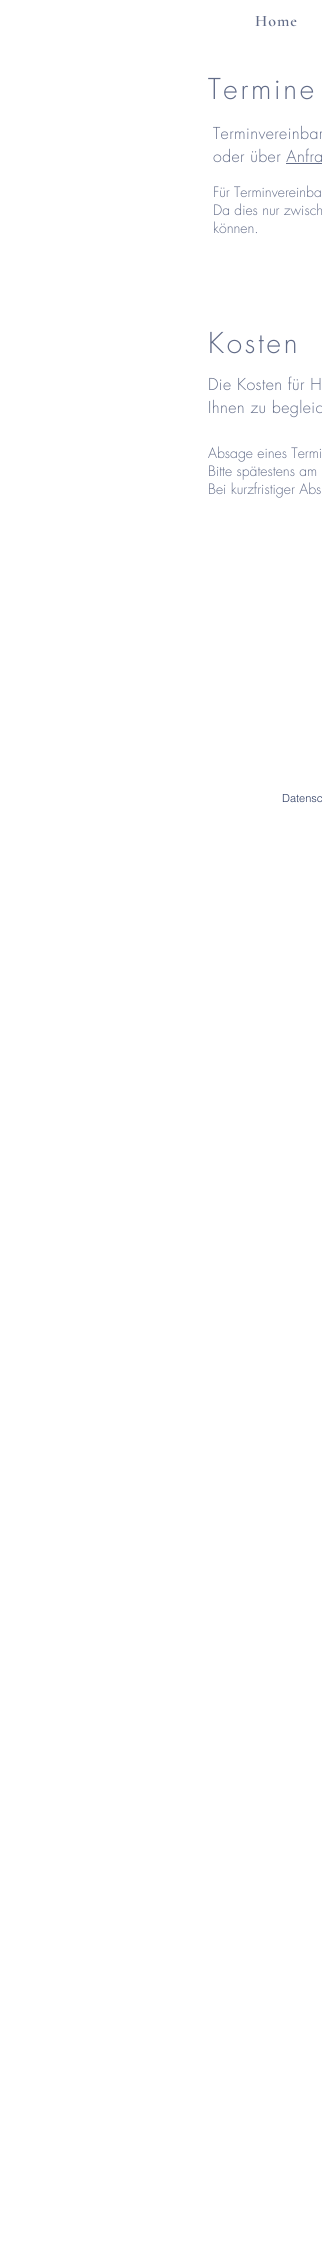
#include <cairo/cairo.h>
#include <math.h>
#include <stddef.h>


static void draw_spaced(cairo_t *cr, double x, double y, const char *s, double letter, double word) {
  cairo_move_to(cr, x, y);
  while (*s) {
    char ch[5] = {0};
    int n = 0;
    do ch[n++] = *s++; while ((*s & 0xC0) == 0x80);
    cairo_show_text(cr, ch);
    cairo_rel_move_to(cr, letter + word * (*ch == ' '), 0);
  }
}

static void draw(cairo_t *cr) {
  cairo_set_source_rgb(cr, 1, 1, 1);
  cairo_paint(cr);
  cairo_set_source_rgb(cr, 97 / 255.0, 107 / 255.0, 135 / 255.0);
  cairo_rectangle(cr, 286, 163, 36, 1);
  cairo_fill(cr);
  cairo_select_font_face(cr, "Cormorant Garamond SemiBold", CAIRO_FONT_SLANT_NORMAL, CAIRO_FONT_WEIGHT_NORMAL);
  cairo_set_font_size(cr, 16);
  draw_spaced(cr, 255, 26, "Home", 1, 0);
  cairo_select_font_face(cr, "futura Light", CAIRO_FONT_SLANT_NORMAL, CAIRO_FONT_WEIGHT_NORMAL);
  cairo_set_font_size(cr, 28);
  draw_spaced(cr, 208, 99, "Termine", 2.75, 0);
  cairo_set_font_size(cr, 16);
  draw_spaced(cr, 213, 139, "Terminvereinbar", 0.4, 0);
  draw_spaced(cr, 213, 162, "oder über Anfra", 0.4, 0);
  cairo_set_font_size(cr, 14);
  cairo_move_to(cr, 213, 197);
  cairo_show_text(cr, "Für Terminvereinba");
  cairo_move_to(cr, 213, 215);
  cairo_show_text(cr, "Da dies nur zwisch");
  cairo_move_to(cr, 213, 233);
  cairo_show_text(cr, "können.");
  cairo_set_font_size(cr, 28);
  draw_spaced(cr, 208, 353, "Kosten", 2.75, 0);
  cairo_set_font_size(cr, 16);
  draw_spaced(cr, 208, 390, "Die Kosten für H", 0.4, 0);
  draw_spaced(cr, 208, 413, "Ihnen zu begleic", 0.4, 0);
  cairo_set_font_size(cr, 14);
  cairo_move_to(cr, 208, 458);
  cairo_show_text(cr, "Absage eines Termi");
  cairo_move_to(cr, 208, 476);
  cairo_show_text(cr, "Bitte spätestens am");
  cairo_move_to(cr, 208, 494);
  cairo_show_text(cr, "Bei kurzfristiger Abs");
  cairo_select_font_face(cr, "helvetica Light", CAIRO_FONT_SLANT_NORMAL, CAIRO_FONT_WEIGHT_NORMAL);
  cairo_set_font_size(cr, 11);
  cairo_set_source_rgb(cr, 41 / 255.0, 56 / 255.0, 95 / 255.0);
  cairo_move_to(cr, 282, 802);
  cairo_show_text(cr, "Datensc");
}

int main(void) {
  cairo_surface_t *surface = cairo_image_surface_create(CAIRO_FORMAT_RGB24, 322, 2268);
  cairo_t *cr = cairo_create(surface);
  cairo_font_options_t *options = cairo_font_options_create();
  cairo_font_options_set_hint_metrics(options, CAIRO_HINT_METRICS_OFF);
  cairo_font_options_set_hint_style(options, CAIRO_HINT_STYLE_NONE);
  cairo_set_font_options(cr, options);
  cairo_set_miter_limit(cr, 4);
  draw(cr);
  cairo_surface_write_to_png(surface, "out.png");
  cairo_font_options_destroy(options);
  cairo_destroy(cr);
  cairo_surface_destroy(surface);
  return 0;
}
